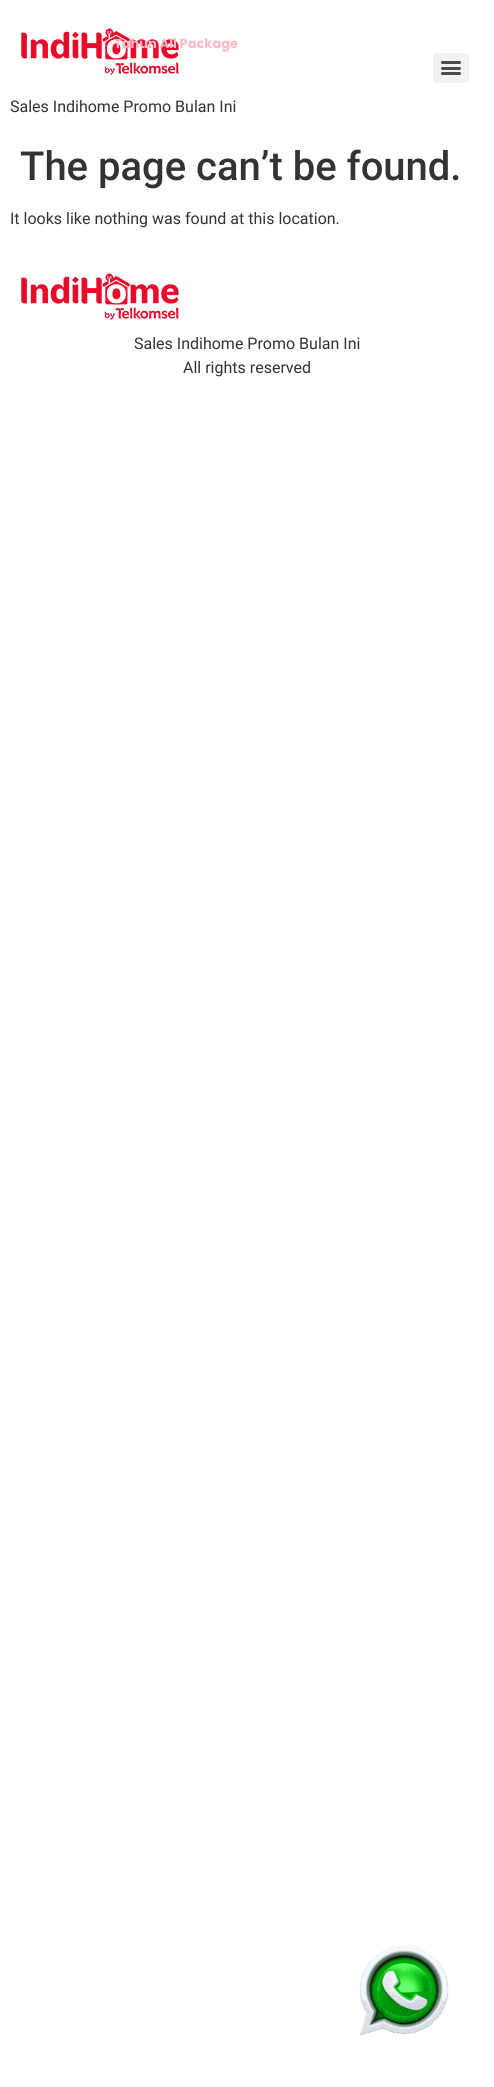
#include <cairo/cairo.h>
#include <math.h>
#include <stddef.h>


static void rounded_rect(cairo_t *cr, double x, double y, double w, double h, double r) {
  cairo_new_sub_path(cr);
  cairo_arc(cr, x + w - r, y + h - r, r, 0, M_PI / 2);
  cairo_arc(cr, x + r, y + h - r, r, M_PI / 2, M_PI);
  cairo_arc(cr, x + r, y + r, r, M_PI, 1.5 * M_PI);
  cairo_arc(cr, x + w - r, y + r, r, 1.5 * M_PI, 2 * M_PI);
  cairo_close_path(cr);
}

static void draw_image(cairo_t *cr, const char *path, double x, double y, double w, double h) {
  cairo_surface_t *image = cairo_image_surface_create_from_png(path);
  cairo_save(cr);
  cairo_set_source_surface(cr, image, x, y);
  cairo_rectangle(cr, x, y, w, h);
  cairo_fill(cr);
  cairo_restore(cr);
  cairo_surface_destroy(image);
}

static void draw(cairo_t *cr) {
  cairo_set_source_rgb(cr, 1, 1, 1);
  cairo_paint(cr);
  cairo_set_source_rgb(cr, 242 / 255.0, 242 / 255.0, 242 / 255.0);
  rounded_rect(cr, 433, 53, 36, 30, 3);
  cairo_fill(cr);
  cairo_set_source_rgb(cr, 73 / 255.0, 76 / 255.0, 79 / 255.0);
  rounded_rect(cr, 441, 67, 20, 3, 1.5);
  cairo_fill(cr);
  rounded_rect(cr, 441, 61, 20, 3, 1.5);
  cairo_fill(cr);
  rounded_rect(cr, 441, 72, 20, 3, 1.5);
  cairo_fill(cr);
  draw_image(cr, "images/1.png", 21, 28, 158, 47);
  draw_image(cr, "images/1.png", 21, 273, 158, 47);
  draw_image(cr, "images/2.png", 359, 1945, 90, 90);
  cairo_select_font_face(cr, "Poppins", CAIRO_FONT_SLANT_NORMAL, CAIRO_FONT_WEIGHT_BOLD);
  cairo_set_font_size(cr, 13);
  cairo_set_source_rgb(cr, 249 / 255.0, 186 / 255.0, 195 / 255.0);
  cairo_move_to(cr, 114, 48);
  cairo_show_text(cr, "Tahun All Package");
  cairo_select_font_face(cr, "Roboto", CAIRO_FONT_SLANT_NORMAL, CAIRO_FONT_WEIGHT_NORMAL);
  cairo_set_font_size(cr, 16);
  cairo_set_source_rgb(cr, 51 / 255.0, 51 / 255.0, 51 / 255.0);
  cairo_move_to(cr, 10, 112);
  cairo_show_text(cr, "Sales Indihome Promo Bulan Ini");
  cairo_select_font_face(cr, "Roboto Medium", CAIRO_FONT_SLANT_NORMAL, CAIRO_FONT_WEIGHT_NORMAL);
  cairo_set_font_size(cr, 40);
  cairo_move_to(cr, 20, 180);
  cairo_show_text(cr, "The page can’t be found.");
  cairo_select_font_face(cr, "Roboto", CAIRO_FONT_SLANT_NORMAL, CAIRO_FONT_WEIGHT_NORMAL);
  cairo_set_font_size(cr, 16);
  cairo_move_to(cr, 10, 224);
  cairo_show_text(cr, "It looks like nothing was found at this location.");
  cairo_move_to(cr, 134, 349);
  cairo_show_text(cr, "Sales Indihome Promo Bulan Ini");
  cairo_move_to(cr, 183, 373);
  cairo_show_text(cr, "All rights reserved");
}

int main(void) {
  cairo_surface_t *surface = cairo_image_surface_create(CAIRO_FORMAT_RGB24, 494, 2087);
  cairo_t *cr = cairo_create(surface);
  cairo_font_options_t *options = cairo_font_options_create();
  cairo_font_options_set_hint_metrics(options, CAIRO_HINT_METRICS_OFF);
  cairo_font_options_set_hint_style(options, CAIRO_HINT_STYLE_NONE);
  cairo_set_font_options(cr, options);
  cairo_set_miter_limit(cr, 4);
  draw(cr);
  cairo_surface_write_to_png(surface, "out.png");
  cairo_font_options_destroy(options);
  cairo_destroy(cr);
  cairo_surface_destroy(surface);
  return 0;
}
